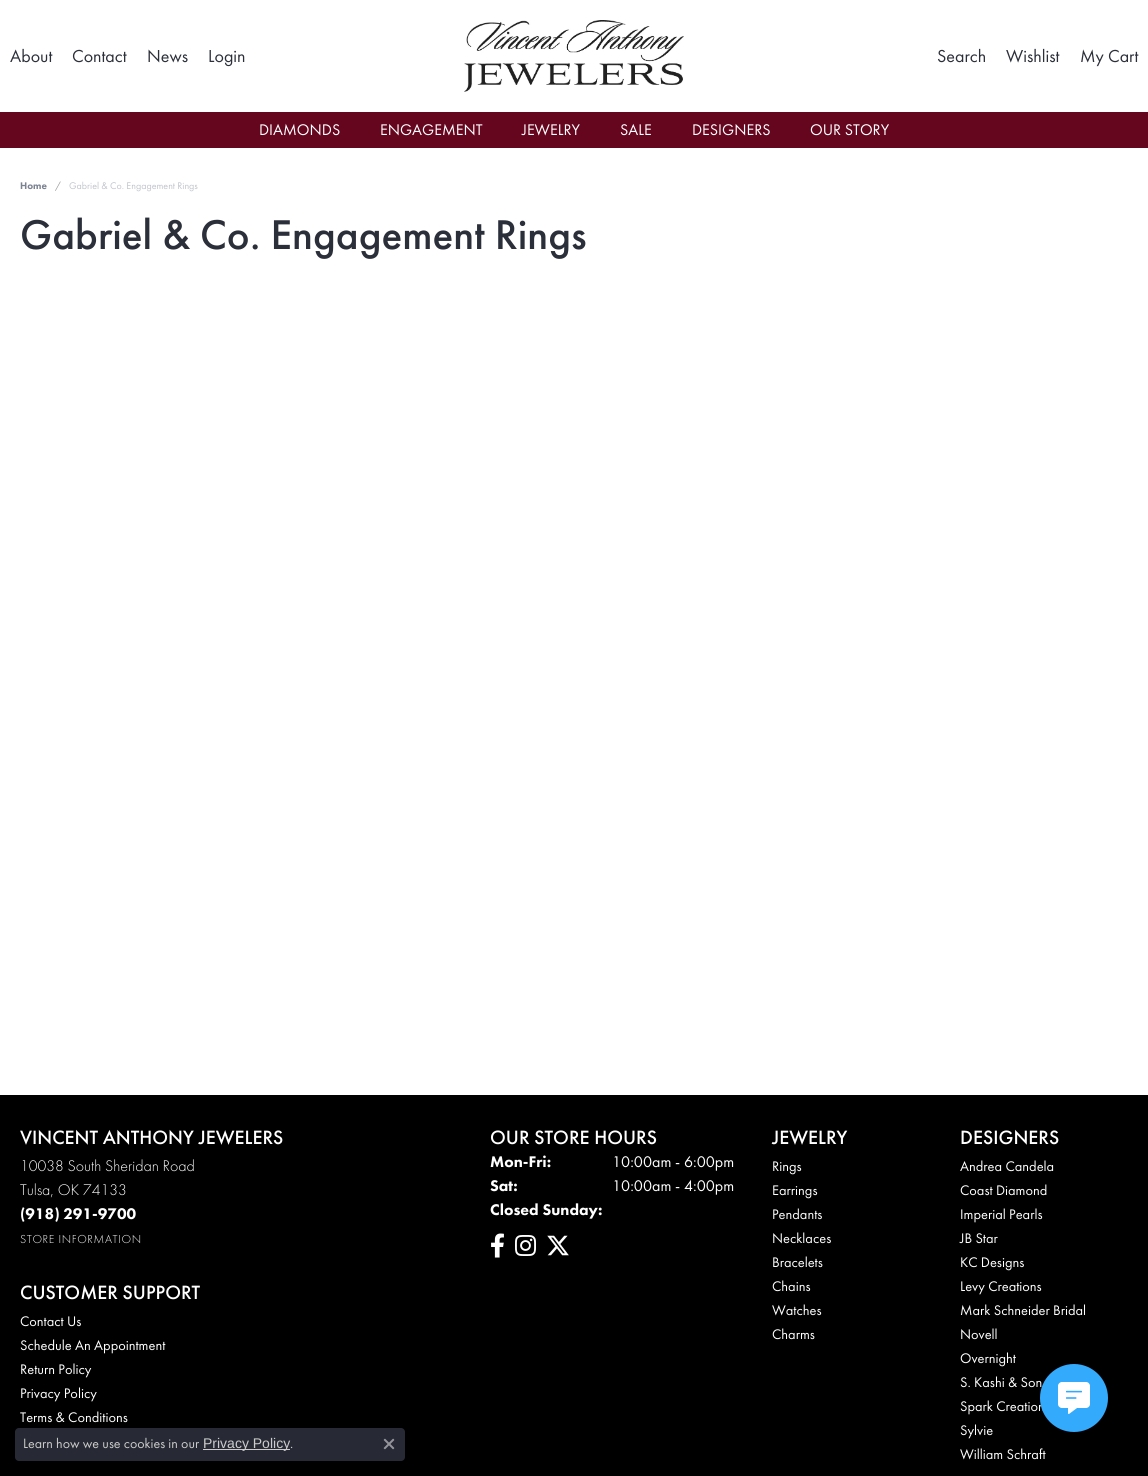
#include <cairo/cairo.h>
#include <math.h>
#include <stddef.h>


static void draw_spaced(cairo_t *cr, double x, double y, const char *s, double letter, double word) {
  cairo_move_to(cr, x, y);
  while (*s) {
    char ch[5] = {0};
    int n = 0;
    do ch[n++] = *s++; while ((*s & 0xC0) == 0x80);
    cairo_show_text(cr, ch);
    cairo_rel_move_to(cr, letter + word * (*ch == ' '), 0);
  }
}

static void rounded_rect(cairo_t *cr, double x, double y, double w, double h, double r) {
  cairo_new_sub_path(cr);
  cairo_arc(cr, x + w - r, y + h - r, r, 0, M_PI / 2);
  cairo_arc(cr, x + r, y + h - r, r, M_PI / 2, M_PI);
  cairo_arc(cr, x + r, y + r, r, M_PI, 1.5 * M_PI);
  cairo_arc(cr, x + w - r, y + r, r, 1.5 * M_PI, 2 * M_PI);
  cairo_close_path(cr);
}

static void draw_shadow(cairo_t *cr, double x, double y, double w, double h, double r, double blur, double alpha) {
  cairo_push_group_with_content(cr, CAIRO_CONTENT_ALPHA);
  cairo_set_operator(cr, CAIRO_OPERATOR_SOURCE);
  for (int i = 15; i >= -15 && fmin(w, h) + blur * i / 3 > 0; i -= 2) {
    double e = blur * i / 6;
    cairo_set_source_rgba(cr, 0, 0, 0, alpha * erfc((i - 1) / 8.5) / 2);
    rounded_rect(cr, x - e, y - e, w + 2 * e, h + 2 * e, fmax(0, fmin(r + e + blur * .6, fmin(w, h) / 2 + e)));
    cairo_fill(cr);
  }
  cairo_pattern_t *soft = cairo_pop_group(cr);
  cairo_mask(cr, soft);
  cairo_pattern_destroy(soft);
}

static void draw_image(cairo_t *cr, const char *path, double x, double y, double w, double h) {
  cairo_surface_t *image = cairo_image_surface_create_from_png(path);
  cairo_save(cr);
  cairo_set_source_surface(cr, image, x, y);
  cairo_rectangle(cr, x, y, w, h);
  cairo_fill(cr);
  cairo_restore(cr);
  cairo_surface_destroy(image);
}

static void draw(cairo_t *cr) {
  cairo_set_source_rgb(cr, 1, 1, 1);
  cairo_paint(cr);
  draw_image(cr, "images/1.png", 464, 20, 220, 72);
  cairo_set_source_rgb(cr, 101 / 255.0, 5 / 255.0, 30 / 255.0);
  cairo_rectangle(cr, 0, 112, 1148, 36);
  cairo_fill(cr);
  cairo_set_source_rgb(cr, 0, 0, 0);
  cairo_rectangle(cr, 0, 1095, 1148, 381);
  cairo_fill(cr);
  draw_image(cr, "images/2.png", 491, 1233, 13, 25);
  draw_image(cr, "images/3.png", 515, 1235, 21, 21);
  draw_image(cr, "images/4.png", 547, 1235, 22, 21);
  cairo_set_source_rgb(cr, 39 / 255.0, 42 / 255.0, 52 / 255.0);
  rounded_rect(cr, 15, 1428, 390, 33, 4);
  cairo_fill(cr);
  cairo_set_source_rgb(cr, 204 / 255.0, 204 / 255.0, 204 / 255.0);
  cairo_rectangle(cr, 203, 1449, 87, 1);
  cairo_fill(cr);
  draw_image(cr, "images/5.png", 383, 1438, 12, 12);
  cairo_set_source_rgb(cr, 0, 0, 0);
  draw_shadow(cr, 1040, 1376, 68, 68, 34, 9.5, 0.18);
  cairo_select_font_face(cr, "Futura PT", CAIRO_FONT_SLANT_NORMAL, CAIRO_FONT_WEIGHT_NORMAL);
  cairo_set_font_size(cr, 18);
  cairo_set_source_rgb(cr, 43 / 255.0, 47 / 255.0, 58 / 255.0);
  cairo_move_to(cr, 10, 62);
  cairo_show_text(cr, "About");
  cairo_move_to(cr, 72, 62);
  cairo_show_text(cr, "Contact");
  cairo_move_to(cr, 147, 62);
  cairo_show_text(cr, "News");
  cairo_move_to(cr, 208, 62);
  cairo_show_text(cr, "Login");
  cairo_move_to(cr, 937, 62);
  cairo_show_text(cr, "Search");
  cairo_move_to(cr, 1006, 62);
  cairo_show_text(cr, "Wishlist");
  cairo_move_to(cr, 1080, 62);
  cairo_show_text(cr, "My Cart");
  cairo_set_font_size(cr, 16);
  cairo_set_source_rgb(cr, 1, 1, 1);
  cairo_move_to(cr, 259, 135);
  cairo_show_text(cr, "DIAMONDS");
  cairo_move_to(cr, 380, 135);
  cairo_show_text(cr, "ENGAGEMENT");
  cairo_move_to(cr, 522, 135);
  cairo_show_text(cr, "JEWELRY");
  cairo_move_to(cr, 620, 135);
  cairo_show_text(cr, "SALE");
  cairo_move_to(cr, 692, 135);
  cairo_show_text(cr, "DESIGNERS");
  cairo_move_to(cr, 810, 135);
  cairo_show_text(cr, "OUR STORY");
  cairo_select_font_face(cr, "Futura PT Black", CAIRO_FONT_SLANT_NORMAL, CAIRO_FONT_WEIGHT_NORMAL);
  cairo_set_font_size(cr, 10);
  cairo_set_source_rgb(cr, 123 / 255.0, 130 / 255.0, 146 / 255.0);
  cairo_move_to(cr, 20, 189);
  cairo_show_text(cr, "Home");
  cairo_select_font_face(cr, "Futura PT", CAIRO_FONT_SLANT_NORMAL, CAIRO_FONT_WEIGHT_NORMAL);
  cairo_set_source_rgb(cr, 155 / 255.0, 152 / 255.0, 153 / 255.0);
  cairo_move_to(cr, 55, 189);
  cairo_show_text(cr, "/");
  cairo_set_source_rgb(cr, 193 / 255.0, 196 / 255.0, 204 / 255.0);
  cairo_move_to(cr, 69, 189);
  cairo_show_text(cr, "Gabriel & Co. Engagement Rings");
  cairo_select_font_face(cr, "Futura PT Medium", CAIRO_FONT_SLANT_NORMAL, CAIRO_FONT_WEIGHT_NORMAL);
  cairo_set_font_size(cr, 43.1);
  cairo_set_source_rgb(cr, 43 / 255.0, 47 / 255.0, 58 / 255.0);
  cairo_move_to(cr, 20, 249);
  cairo_show_text(cr, "Gabriel & Co. Engagement Rings");
  cairo_set_font_size(cr, 20);
  cairo_set_source_rgb(cr, 1, 1, 1);
  cairo_move_to(cr, 20, 1144);
  cairo_show_text(cr, "VINCENT ANTHONY JEWELERS");
  cairo_select_font_face(cr, "Futura PT Light", CAIRO_FONT_SLANT_NORMAL, CAIRO_FONT_WEIGHT_NORMAL);
  cairo_set_font_size(cr, 16);
  cairo_move_to(cr, 20, 1171);
  cairo_show_text(cr, "10038 South Sheridan Road");
  cairo_move_to(cr, 20, 1195);
  cairo_show_text(cr, "Tulsa, OK 74133");
  cairo_select_font_face(cr, "Futura PT Black", CAIRO_FONT_SLANT_NORMAL, CAIRO_FONT_WEIGHT_NORMAL);
  cairo_move_to(cr, 20, 1219);
  cairo_show_text(cr, "(918) 291-9700");
  cairo_select_font_face(cr, "Futura PT Light", CAIRO_FONT_SLANT_NORMAL, CAIRO_FONT_WEIGHT_NORMAL);
  cairo_set_font_size(cr, 12);
  draw_spaced(cr, 20, 1243, "STORE INFORMATION", 0.6, 0);
  cairo_select_font_face(cr, "Futura PT Medium", CAIRO_FONT_SLANT_NORMAL, CAIRO_FONT_WEIGHT_NORMAL);
  cairo_set_font_size(cr, 20);
  cairo_move_to(cr, 20, 1299);
  cairo_show_text(cr, "CUSTOMER SUPPORT");
  cairo_select_font_face(cr, "Futura PT", CAIRO_FONT_SLANT_NORMAL, CAIRO_FONT_WEIGHT_NORMAL);
  cairo_set_font_size(cr, 14.4);
  cairo_move_to(cr, 20, 1326);
  cairo_show_text(cr, "Contact Us");
  cairo_move_to(cr, 20, 1350);
  cairo_show_text(cr, "Schedule An Appointment");
  cairo_move_to(cr, 20, 1374);
  cairo_show_text(cr, "Return Policy");
  cairo_move_to(cr, 20, 1398);
  cairo_show_text(cr, "Privacy Policy");
  cairo_move_to(cr, 20, 1422);
  cairo_show_text(cr, "Terms & Conditions");
  cairo_select_font_face(cr, "Futura PT Medium", CAIRO_FONT_SLANT_NORMAL, CAIRO_FONT_WEIGHT_NORMAL);
  cairo_set_font_size(cr, 20);
  cairo_move_to(cr, 490, 1144);
  cairo_show_text(cr, "OUR STORE HOURS");
  cairo_select_font_face(cr, "Futura PT Black", CAIRO_FONT_SLANT_NORMAL, CAIRO_FONT_WEIGHT_NORMAL);
  cairo_set_font_size(cr, 16);
  cairo_move_to(cr, 490, 1167);
  cairo_show_text(cr, "Mon-Fri:");
  cairo_select_font_face(cr, "Futura PT", CAIRO_FONT_SLANT_NORMAL, CAIRO_FONT_WEIGHT_NORMAL);
  cairo_move_to(cr, 612, 1167);
  cairo_show_text(cr, "10:00am - 6:00pm");
  cairo_select_font_face(cr, "Futura PT Black", CAIRO_FONT_SLANT_NORMAL, CAIRO_FONT_WEIGHT_NORMAL);
  cairo_move_to(cr, 490, 1191);
  cairo_show_text(cr, "Sat:");
  cairo_select_font_face(cr, "Futura PT", CAIRO_FONT_SLANT_NORMAL, CAIRO_FONT_WEIGHT_NORMAL);
  cairo_move_to(cr, 612, 1191);
  cairo_show_text(cr, "10:00am - 4:00pm");
  cairo_select_font_face(cr, "Futura PT Black", CAIRO_FONT_SLANT_NORMAL, CAIRO_FONT_WEIGHT_NORMAL);
  cairo_move_to(cr, 490, 1215);
  cairo_show_text(cr, "Closed Sunday:");
  cairo_select_font_face(cr, "Futura PT Medium", CAIRO_FONT_SLANT_NORMAL, CAIRO_FONT_WEIGHT_NORMAL);
  cairo_set_font_size(cr, 20);
  cairo_move_to(cr, 772, 1144);
  cairo_show_text(cr, "JEWELRY");
  cairo_select_font_face(cr, "Futura PT", CAIRO_FONT_SLANT_NORMAL, CAIRO_FONT_WEIGHT_NORMAL);
  cairo_set_font_size(cr, 14.4);
  cairo_move_to(cr, 772, 1171);
  cairo_show_text(cr, "Rings");
  cairo_move_to(cr, 772, 1195);
  cairo_show_text(cr, "Earrings");
  cairo_move_to(cr, 772, 1219);
  cairo_show_text(cr, "Pendants");
  cairo_move_to(cr, 772, 1243);
  cairo_show_text(cr, "Necklaces");
  cairo_move_to(cr, 772, 1267);
  cairo_show_text(cr, "Bracelets");
  cairo_move_to(cr, 772, 1291);
  cairo_show_text(cr, "Chains");
  cairo_move_to(cr, 772, 1315);
  cairo_show_text(cr, "Watches");
  cairo_move_to(cr, 772, 1339);
  cairo_show_text(cr, "Charms");
  cairo_select_font_face(cr, "Futura PT Medium", CAIRO_FONT_SLANT_NORMAL, CAIRO_FONT_WEIGHT_NORMAL);
  cairo_set_font_size(cr, 20);
  cairo_move_to(cr, 960, 1144);
  cairo_show_text(cr, "DESIGNERS");
  cairo_select_font_face(cr, "Futura PT", CAIRO_FONT_SLANT_NORMAL, CAIRO_FONT_WEIGHT_NORMAL);
  cairo_set_font_size(cr, 14.4);
  cairo_move_to(cr, 960, 1171);
  cairo_show_text(cr, "Andrea Candela");
  cairo_move_to(cr, 960, 1195);
  cairo_show_text(cr, "Coast Diamond");
  cairo_move_to(cr, 960, 1219);
  cairo_show_text(cr, "Imperial Pearls");
  cairo_move_to(cr, 960, 1243);
  cairo_show_text(cr, "JB Star");
  cairo_move_to(cr, 960, 1267);
  cairo_show_text(cr, "KC Designs");
  cairo_move_to(cr, 960, 1291);
  cairo_show_text(cr, "Levy Creations");
  cairo_move_to(cr, 960, 1315);
  cairo_show_text(cr, "Mark Schneider Bridal");
  cairo_move_to(cr, 960, 1339);
  cairo_show_text(cr, "Novell");
  cairo_move_to(cr, 960, 1363);
  cairo_show_text(cr, "Overnight");
  cairo_move_to(cr, 960, 1387);
  cairo_show_text(cr, "S. Kashi & Son");
  cairo_move_to(cr, 960, 1411);
  cairo_show_text(cr, "Spark Creation");
  cairo_move_to(cr, 960, 1435);
  cairo_show_text(cr, "Sylvie");
  cairo_move_to(cr, 960, 1459);
  cairo_show_text(cr, "William Schraft");
  cairo_set_font_size(cr, 14);
  cairo_set_source_rgb(cr, 204 / 255.0, 204 / 255.0, 204 / 255.0);
  cairo_move_to(cr, 23, 1448);
  cairo_show_text(cr, "Learn how we use cookies in our");
  cairo_select_font_face(cr, "Liberation Sans", CAIRO_FONT_SLANT_NORMAL, CAIRO_FONT_WEIGHT_NORMAL);
  cairo_move_to(cr, 203, 1448);
  cairo_show_text(cr, "Privacy Policy");
  cairo_select_font_face(cr, "Futura PT", CAIRO_FONT_SLANT_NORMAL, CAIRO_FONT_WEIGHT_NORMAL);
  cairo_move_to(cr, 290, 1448);
  cairo_show_text(cr, ".");
  cairo_set_source_rgb(cr, 51 / 255.0, 170 / 255.0, 252 / 255.0);
  cairo_new_path(cr);
  cairo_arc(cr, 1074, 1398, 34, 0, 2 * M_PI);
  cairo_fill(cr);
  draw_image(cr, "images/6.png", 1058, 1382, 32, 32);
}

int main(void) {
  cairo_surface_t *surface = cairo_image_surface_create(CAIRO_FORMAT_RGB24, 1148, 1476);
  cairo_t *cr = cairo_create(surface);
  cairo_font_options_t *options = cairo_font_options_create();
  cairo_font_options_set_hint_metrics(options, CAIRO_HINT_METRICS_OFF);
  cairo_font_options_set_hint_style(options, CAIRO_HINT_STYLE_NONE);
  cairo_set_font_options(cr, options);
  cairo_set_miter_limit(cr, 4);
  draw(cr);
  cairo_surface_write_to_png(surface, "out.png");
  cairo_font_options_destroy(options);
  cairo_destroy(cr);
  cairo_surface_destroy(surface);
  return 0;
}
